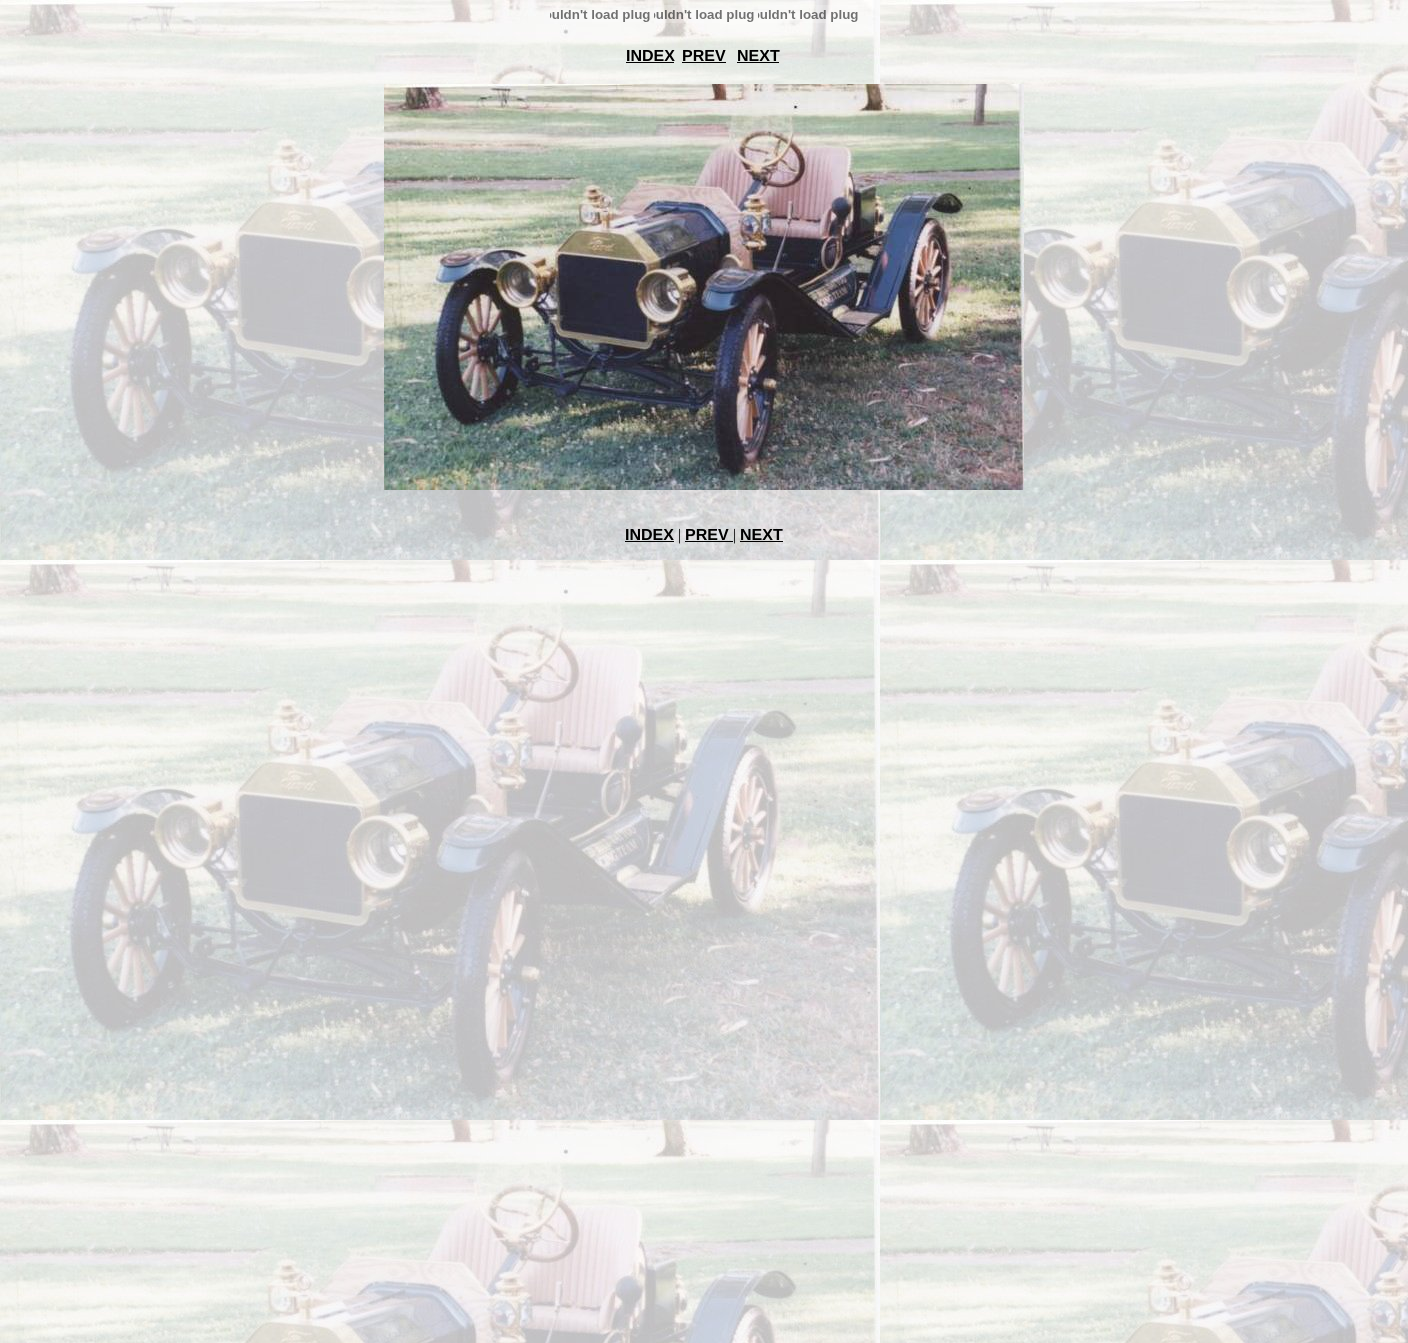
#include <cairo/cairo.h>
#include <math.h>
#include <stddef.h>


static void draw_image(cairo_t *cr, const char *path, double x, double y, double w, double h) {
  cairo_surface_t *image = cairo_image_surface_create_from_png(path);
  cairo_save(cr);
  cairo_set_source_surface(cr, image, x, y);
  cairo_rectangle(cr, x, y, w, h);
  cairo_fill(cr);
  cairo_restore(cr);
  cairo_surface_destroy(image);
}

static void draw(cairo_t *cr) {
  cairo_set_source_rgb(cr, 1, 1, 1);
  cairo_paint(cr);
  draw_image(cr, "images/1.png", 0, 0, 1408, 1343);
  draw_image(cr, "images/2.png", 550, 5, 100, 17);
  draw_image(cr, "images/3.png", 654, 5, 100, 18);
  draw_image(cr, "images/4.png", 758, 5, 100, 18);
  cairo_set_source_rgb(cr, 0, 0, 0);
  cairo_rectangle(cr, 626, 62, 48, 1);
  cairo_fill(cr);
  cairo_rectangle(cr, 682, 62, 44, 1);
  cairo_fill(cr);
  cairo_rectangle(cr, 737, 62, 42, 1);
  cairo_fill(cr);
  draw_image(cr, "images/5.png", 384, 84, 640, 406);
  cairo_rectangle(cr, 625, 541, 49, 1);
  cairo_fill(cr);
  cairo_rectangle(cr, 685, 541, 48, 1);
  cairo_fill(cr);
  cairo_rectangle(cr, 740, 541, 43, 1);
  cairo_fill(cr);
  cairo_select_font_face(cr, "Liberation Sans", CAIRO_FONT_SLANT_NORMAL, CAIRO_FONT_WEIGHT_BOLD);
  cairo_set_font_size(cr, 16);
  cairo_move_to(cr, 626, 61);
  cairo_show_text(cr, "INDEX");
  cairo_move_to(cr, 682, 61);
  cairo_show_text(cr, "PREV");
  cairo_move_to(cr, 737, 61);
  cairo_show_text(cr, "NEXT");
  cairo_move_to(cr, 625, 540);
  cairo_show_text(cr, "INDEX");
  cairo_select_font_face(cr, "Liberation Serif", CAIRO_FONT_SLANT_NORMAL, CAIRO_FONT_WEIGHT_NORMAL);
  cairo_move_to(cr, 678, 540);
  cairo_show_text(cr, "|");
  cairo_select_font_face(cr, "Liberation Sans", CAIRO_FONT_SLANT_NORMAL, CAIRO_FONT_WEIGHT_BOLD);
  cairo_move_to(cr, 685, 540);
  cairo_show_text(cr, "PREV");
  cairo_select_font_face(cr, "Liberation Serif", CAIRO_FONT_SLANT_NORMAL, CAIRO_FONT_WEIGHT_NORMAL);
  cairo_move_to(cr, 733, 540);
  cairo_show_text(cr, "|");
  cairo_select_font_face(cr, "Liberation Sans", CAIRO_FONT_SLANT_NORMAL, CAIRO_FONT_WEIGHT_BOLD);
  cairo_move_to(cr, 740, 540);
  cairo_show_text(cr, "NEXT");
}

int main(void) {
  cairo_surface_t *surface = cairo_image_surface_create(CAIRO_FORMAT_RGB24, 1408, 1343);
  cairo_t *cr = cairo_create(surface);
  cairo_font_options_t *options = cairo_font_options_create();
  cairo_font_options_set_hint_metrics(options, CAIRO_HINT_METRICS_OFF);
  cairo_font_options_set_hint_style(options, CAIRO_HINT_STYLE_NONE);
  cairo_set_font_options(cr, options);
  cairo_set_miter_limit(cr, 4);
  draw(cr);
  cairo_surface_write_to_png(surface, "out.png");
  cairo_font_options_destroy(options);
  cairo_destroy(cr);
  cairo_surface_destroy(surface);
  return 0;
}
